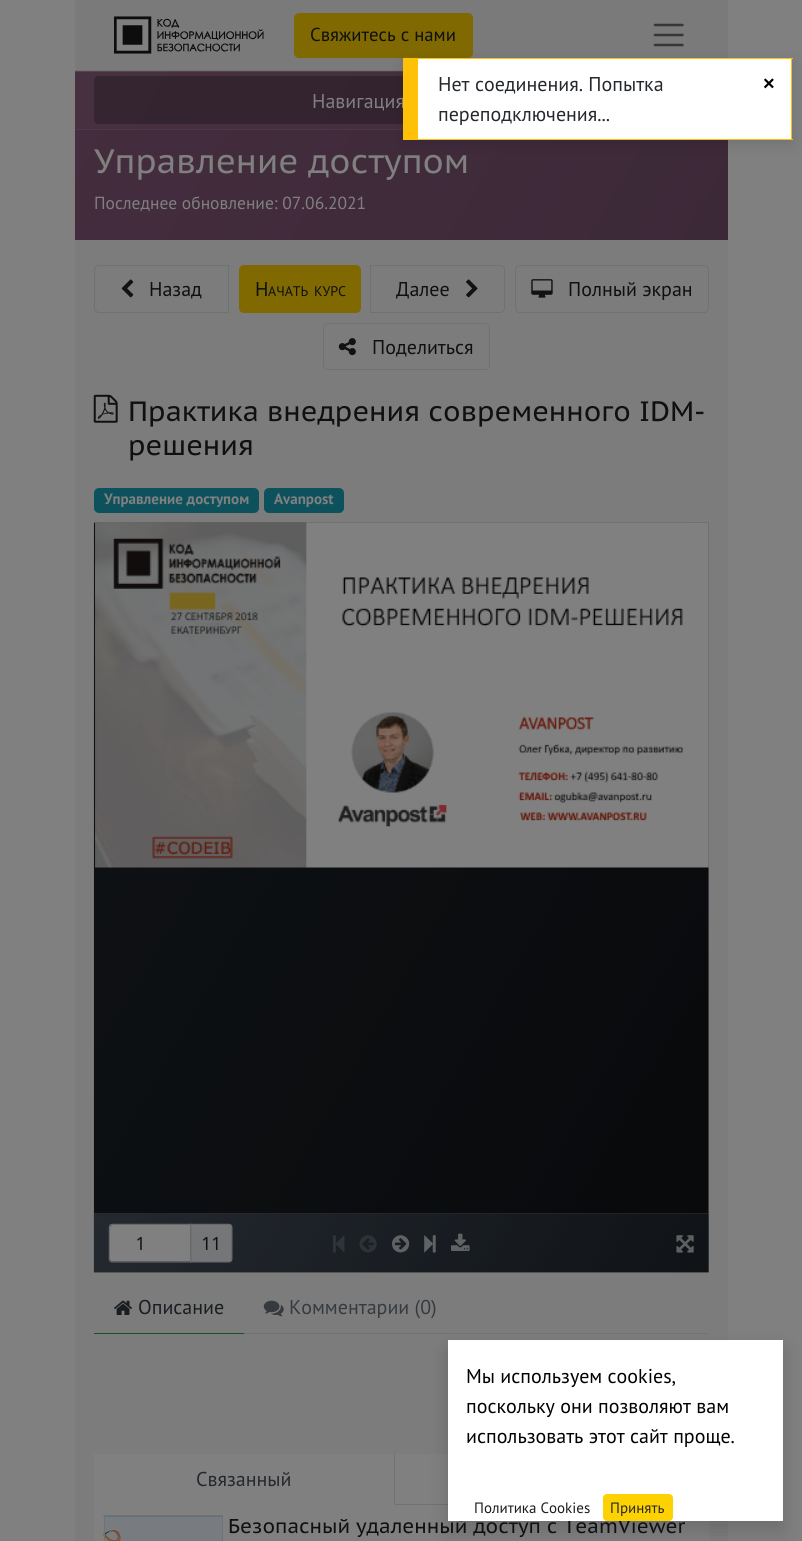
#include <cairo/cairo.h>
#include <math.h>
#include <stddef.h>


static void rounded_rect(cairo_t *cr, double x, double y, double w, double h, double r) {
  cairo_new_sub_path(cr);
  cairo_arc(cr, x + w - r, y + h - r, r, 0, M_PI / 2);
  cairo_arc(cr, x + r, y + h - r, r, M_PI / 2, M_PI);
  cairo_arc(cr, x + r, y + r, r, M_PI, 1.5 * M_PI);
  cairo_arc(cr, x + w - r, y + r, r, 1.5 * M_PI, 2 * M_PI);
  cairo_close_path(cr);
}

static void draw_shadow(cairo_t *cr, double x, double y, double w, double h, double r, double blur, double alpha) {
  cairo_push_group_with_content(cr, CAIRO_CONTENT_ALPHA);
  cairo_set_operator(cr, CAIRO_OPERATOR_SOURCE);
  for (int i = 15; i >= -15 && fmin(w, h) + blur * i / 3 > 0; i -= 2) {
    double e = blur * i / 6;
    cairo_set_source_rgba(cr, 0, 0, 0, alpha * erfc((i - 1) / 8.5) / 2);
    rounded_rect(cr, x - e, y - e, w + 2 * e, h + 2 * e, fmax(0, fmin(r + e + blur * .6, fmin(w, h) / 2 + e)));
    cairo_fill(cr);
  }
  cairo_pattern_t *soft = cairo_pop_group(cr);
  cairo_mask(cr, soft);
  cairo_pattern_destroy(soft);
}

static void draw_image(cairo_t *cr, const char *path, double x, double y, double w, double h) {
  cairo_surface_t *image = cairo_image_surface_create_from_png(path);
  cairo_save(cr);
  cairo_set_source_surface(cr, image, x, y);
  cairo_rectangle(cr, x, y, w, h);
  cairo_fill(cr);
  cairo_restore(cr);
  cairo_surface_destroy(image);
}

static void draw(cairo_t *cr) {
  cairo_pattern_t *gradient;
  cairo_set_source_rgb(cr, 128 / 255.0, 128 / 255.0, 128 / 255.0);
  cairo_paint(cr);
  gradient = cairo_pattern_create_linear(120, -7.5, 683, 318);
  cairo_pattern_add_color_stop_rgba(gradient, 0, 71 / 255.0, 49 / 255.0, 65 / 255.0, 1);
  cairo_pattern_add_color_stop_rgba(gradient, 1, 64 / 255.0, 45 / 255.0, 59 / 255.0, 1);
  cairo_set_source(cr, gradient);
  cairo_pattern_destroy(gradient);
  cairo_rectangle(cr, 75, 70, 328, 59);
  cairo_fill(cr);
  cairo_set_source_rgb(cr, 122 / 255.0, 122 / 255.0, 123 / 255.0);
  draw_shadow(cr, 75, 1, 653, 70, 0, 0.5, 1);
  cairo_set_source_rgb(cr, 122 / 255.0, 122 / 255.0, 123 / 255.0);
  cairo_rectangle(cr, 75, 0, 653, 1);
  cairo_fill(cr);
  draw_image(cr, "images/1.png", 114, 16, 150, 38);
  cairo_set_source_rgb(cr, 127 / 255.0, 105 / 255.0, 0);
  rounded_rect(cr, 294.5, 13.5, 178, 44, 4.5);
  cairo_fill_preserve(cr);
  cairo_set_line_width(cr, 1);
  cairo_stroke(cr);
  cairo_new_path(cr);
  cairo_move_to(cr, 655, 25);
  cairo_line_to(cr, 682.5, 25);
  cairo_move_to(cr, 655, 35);
  cairo_line_to(cr, 682.5, 35);
  cairo_move_to(cr, 655, 45);
  cairo_line_to(cr, 682.5, 45);
  cairo_set_source_rgb(cr, 55 / 255.0, 55 / 255.0, 55 / 255.0);
  cairo_set_line_width(cr, 2.5);
  cairo_set_line_cap(cr, CAIRO_LINE_CAP_ROUND);
  cairo_stroke(cr);
  cairo_set_source_rgb(cr, 124 / 255.0, 124 / 255.0, 125 / 255.0);
  cairo_rectangle(cr, 75, 240, 653, 1301);
  cairo_fill(cr);
  gradient = cairo_pattern_create_linear(120, -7.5, 683, 318);
  cairo_pattern_add_color_stop_rgba(gradient, 0, 68 / 255.0, 45 / 255.0, 62 / 255.0, 1);
  cairo_pattern_add_color_stop_rgba(gradient, 1, 60 / 255.0, 41 / 255.0, 56 / 255.0, 1);
  cairo_set_source(cr, gradient);
  cairo_pattern_destroy(gradient);
  cairo_rectangle(cr, 75, 130, 653, 110);
  cairo_fill(cr);
  gradient = cairo_pattern_create_linear(120, -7.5, 683, 318);
  cairo_pattern_add_color_stop_rgba(gradient, 0, 76 / 255.0, 57 / 255.0, 72 / 255.0, 1);
  cairo_pattern_add_color_stop_rgba(gradient, 1, 70 / 255.0, 54 / 255.0, 66 / 255.0, 1);
  cairo_set_source(cr, gradient);
  cairo_pattern_destroy(gradient);
  cairo_rectangle(cr, 75, 129, 328, 1);
  cairo_fill(cr);
  cairo_set_source_rgba(cr, 0, 0, 0, 0.25);
  cairo_new_path(cr);
  cairo_move_to(cr, 99, 76);
  cairo_line_to(cr, 638, 76);
  cairo_line_to(cr, 638, 124);
  cairo_line_to(cr, 99, 124);
  cairo_curve_to(cr, 96, 124, 94, 122, 94, 119);
  cairo_line_to(cr, 94, 81);
  cairo_curve_to(cr, 94, 78, 96, 76, 99, 76);
  cairo_close_path(cr);
  cairo_fill(cr);
  cairo_new_path(cr);
  cairo_move_to(cr, 99, 265.5);
  cairo_line_to(cr, 228.5, 265.5);
  cairo_line_to(cr, 228.5, 312.5);
  cairo_line_to(cr, 99, 312.5);
  cairo_curve_to(cr, 96.5, 312.5, 94.5, 310.5, 94.5, 308);
  cairo_line_to(cr, 94.5, 270);
  cairo_curve_to(cr, 94.5, 267.5, 96.5, 265.5, 99, 265.5);
  cairo_close_path(cr);
  cairo_set_source_rgb(cr, 111 / 255.0, 113 / 255.0, 115 / 255.0);
  cairo_set_line_width(cr, 1);
  cairo_set_line_cap(cr, CAIRO_LINE_CAP_BUTT);
  cairo_stroke(cr);
  draw_image(cr, "images/2.png", 121, 279, 13, 19);
  cairo_set_source_rgb(cr, 127 / 255.0, 105 / 255.0, 0);
  rounded_rect(cr, 239.5, 265.5, 121, 47, 4.5);
  cairo_fill_preserve(cr);
  cairo_stroke(cr);
  cairo_new_path(cr);
  cairo_move_to(cr, 370.5, 265.5);
  cairo_line_to(cr, 500, 265.5);
  cairo_curve_to(cr, 502.5, 265.5, 504.5, 267.5, 504.5, 270);
  cairo_line_to(cr, 504.5, 308);
  cairo_curve_to(cr, 504.5, 310.5, 502.5, 312.5, 500, 312.5);
  cairo_line_to(cr, 370.5, 312.5);
  cairo_close_path(cr);
  cairo_set_source_rgb(cr, 111 / 255.0, 113 / 255.0, 115 / 255.0);
  cairo_stroke(cr);
  draw_image(cr, "images/3.png", 466, 279, 12, 19);
  rounded_rect(cr, 515.5, 265.5, 193, 47, 4.5);
  cairo_stroke(cr);
  draw_image(cr, "images/4.png", 531, 279, 22, 19);
  rounded_rect(cr, 323.5, 323.5, 166, 46, 4.5);
  cairo_stroke(cr);
  draw_image(cr, "images/5.png", 338, 338, 18, 18);
  draw_image(cr, "images/6.png", 93, 394, 25, 29);
  cairo_set_source_rgb(cr, 12 / 255.0, 81 / 255.0, 92 / 255.0);
  rounded_rect(cr, 94, 488, 165, 25, 5);
  cairo_fill(cr);
  rounded_rect(cr, 264, 488, 80, 25, 5);
  cairo_fill(cr);
  draw_image(cr, "images/7.png", 93, 522, 616, 751);
  cairo_set_source_rgb(cr, 111 / 255.0, 113 / 255.0, 115 / 255.0);
  cairo_rectangle(cr, 244, 1333, 465, 1);
  cairo_fill(cr);
  cairo_set_source_rgb(cr, 20 / 255.0, 84 / 255.0, 35 / 255.0);
  cairo_rectangle(cr, 94, 1333, 150, 1);
  cairo_fill(cr);
  draw_image(cr, "images/8.png", 114, 1300, 18, 15);
  draw_image(cr, "images/9.png", 263, 1300, 21, 17);
  cairo_set_source_rgb(cr, 128 / 255.0, 128 / 255.0, 128 / 255.0);
  cairo_rectangle(cr, 395, 1454, 53, 50);
  cairo_fill(cr);
  cairo_set_source_rgb(cr, 111 / 255.0, 113 / 255.0, 115 / 255.0);
  cairo_rectangle(cr, 395, 1504, 53, 1);
  cairo_fill(cr);
  cairo_set_source_rgb(cr, 128 / 255.0, 128 / 255.0, 128 / 255.0);
  cairo_rectangle(cr, 94, 1454, 300, 50);
  cairo_fill(cr);
  cairo_set_source_rgb(cr, 111 / 255.0, 113 / 255.0, 115 / 255.0);
  cairo_rectangle(cr, 394, 1454, 1, 51);
  cairo_fill(cr);
  cairo_set_source_rgb(cr, 128 / 255.0, 128 / 255.0, 128 / 255.0);
  cairo_rectangle(cr, 94, 1504, 301, 1);
  cairo_fill(cr);
  cairo_rectangle(cr, 94, 1505, 615, 36);
  cairo_fill(cr);
  draw_image(cr, "images/10.png", 103, 1515, 119, 26);
  cairo_rectangle(cr, 104.5, 1515.5, 118, 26);
  cairo_set_source_rgb(cr, 111 / 255.0, 113 / 255.0, 115 / 255.0);
  cairo_stroke(cr);
  cairo_set_source_rgb(cr, 0, 0, 0);
  draw_shadow(cr, 448, 1350, 335, 181, 0, 10, 0.15);
  draw_shadow(cr, 403, 63, 390, 82, 0, 7.5, 0.1);
  cairo_set_source_rgb(cr, 1, 1, 1);
  cairo_rectangle(cr, 418, 59, 373, 80);
  cairo_fill(cr);
  cairo_set_source_rgb(cr, 1, 193 / 255.0, 7 / 255.0);
  cairo_rectangle(cr, 418, 58, 375, 1);
  cairo_fill(cr);
  cairo_rectangle(cr, 791, 58, 1, 82);
  cairo_fill(cr);
  cairo_rectangle(cr, 418, 139, 375, 1);
  cairo_fill(cr);
  cairo_select_font_face(cr, "PT Sans", CAIRO_FONT_SLANT_NORMAL, CAIRO_FONT_WEIGHT_NORMAL);
  cairo_set_font_size(cr, 18.75);
  cairo_set_source_rgb(cr, 15 / 255.0, 16 / 255.0, 17 / 255.0);
  cairo_move_to(cr, 310, 41);
  cairo_show_text(cr, "Свяжитесь с нами");
  cairo_set_font_size(cr, 20);
  cairo_set_source_rgb(cr, 128 / 255.0, 128 / 255.0, 128 / 255.0);
  cairo_move_to(cr, 312, 108);
  cairo_show_text(cr, "Навигация");
  cairo_select_font_face(cr, "PT Sans Caption", CAIRO_FONT_SLANT_NORMAL, CAIRO_FONT_WEIGHT_NORMAL);
  cairo_set_font_size(cr, 33.75);
  cairo_move_to(cr, 94, 173);
  cairo_show_text(cr, "Управление доступом");
  cairo_select_font_face(cr, "PT Sans", CAIRO_FONT_SLANT_NORMAL, CAIRO_FONT_WEIGHT_NORMAL);
  cairo_set_font_size(cr, 17.5);
  cairo_move_to(cr, 94, 209);
  cairo_show_text(cr, "Последнее обновление: 07.06.2021");
  cairo_set_font_size(cr, 20);
  cairo_set_source_rgb(cr, 15 / 255.0, 16 / 255.0, 17 / 255.0);
  cairo_move_to(cr, 149, 296);
  cairo_show_text(cr, "Назад");
  cairo_move_to(cr, 255, 296);
  cairo_show_text(cr, "Н");
  cairo_set_font_size(cr, 14);
  cairo_move_to(cr, 268, 296);
  cairo_show_text(cr, "АЧАТЬ");
  cairo_move_to(cr, 314, 296);
  cairo_show_text(cr, "КУРС");
  cairo_set_font_size(cr, 20);
  cairo_move_to(cr, 396, 296);
  cairo_show_text(cr, "Далее");
  cairo_move_to(cr, 568, 296);
  cairo_show_text(cr, "Полный экран");
  cairo_move_to(cr, 372, 354);
  cairo_show_text(cr, "Поделиться");
  cairo_select_font_face(cr, "PT Sans Caption", CAIRO_FONT_SLANT_NORMAL, CAIRO_FONT_WEIGHT_NORMAL);
  cairo_set_font_size(cr, 27.9);
  cairo_move_to(cr, 128, 421);
  cairo_show_text(cr, "Практика внедрения современного IDM-");
  cairo_move_to(cr, 128, 455);
  cairo_show_text(cr, "решения");
  cairo_select_font_face(cr, "PT Sans", CAIRO_FONT_SLANT_NORMAL, CAIRO_FONT_WEIGHT_BOLD);
  cairo_set_font_size(cr, 15);
  cairo_set_source_rgb(cr, 128 / 255.0, 128 / 255.0, 128 / 255.0);
  cairo_move_to(cr, 104, 504);
  cairo_show_text(cr, "Управление доступом");
  cairo_move_to(cr, 274, 504);
  cairo_show_text(cr, "Avanpost");
  cairo_select_font_face(cr, "PT Sans", CAIRO_FONT_SLANT_NORMAL, CAIRO_FONT_WEIGHT_NORMAL);
  cairo_set_font_size(cr, 20);
  cairo_set_source_rgb(cr, 26 / 255.0, 29 / 255.0, 32 / 255.0);
  cairo_move_to(cr, 138, 1314);
  cairo_show_text(cr, "Описание");
  cairo_set_source_rgb(cr, 54 / 255.0, 59 / 255.0, 63 / 255.0);
  cairo_move_to(cr, 289, 1314);
  cairo_show_text(cr, "Комментарии (0)");
  cairo_set_source_rgb(cr, 37 / 255.0, 40 / 255.0, 44 / 255.0);
  cairo_move_to(cr, 196, 1486);
  cairo_show_text(cr, "Связанный");
  cairo_select_font_face(cr, "PT Sans Caption", CAIRO_FONT_SLANT_NORMAL, CAIRO_FONT_WEIGHT_NORMAL);
  cairo_set_source_rgb(cr, 15 / 255.0, 16 / 255.0, 17 / 255.0);
  cairo_move_to(cr, 228, 1533);
  cairo_show_text(cr, "Безопасный удаленный доступ c TeamViewer");
  cairo_set_source_rgb(cr, 1, 1, 1);
  cairo_rectangle(cr, 448, 1340, 335, 181);
  cairo_fill(cr);
  cairo_select_font_face(cr, "PT Sans", CAIRO_FONT_SLANT_NORMAL, CAIRO_FONT_WEIGHT_NORMAL);
  cairo_set_source_rgb(cr, 0, 0, 0);
  cairo_move_to(cr, 466, 1383);
  cairo_show_text(cr, "Мы используем cookies,");
  cairo_move_to(cr, 466, 1413);
  cairo_show_text(cr, "поскольку они позволяют вам");
  cairo_move_to(cr, 466, 1443);
  cairo_show_text(cr, "использовать этот сайт проще.");
  cairo_set_font_size(cr, 15);
  cairo_set_source_rgb(cr, 26 / 255.0, 29 / 255.0, 32 / 255.0);
  cairo_move_to(cr, 474, 1513);
  cairo_show_text(cr, "Политика Cookies");
  cairo_set_source_rgb(cr, 253 / 255.0, 210 / 255.0, 0);
  rounded_rect(cr, 603.5, 1494.5, 69, 26, 3.5);
  cairo_fill_preserve(cr);
  cairo_stroke(cr);
  cairo_set_source_rgb(cr, 37 / 255.0, 40 / 255.0, 44 / 255.0);
  cairo_move_to(cr, 610, 1513);
  cairo_show_text(cr, "Принять");
  cairo_set_source_rgb(cr, 1, 193 / 255.0, 7 / 255.0);
  cairo_rectangle(cr, 403, 58, 15, 82);
  cairo_fill(cr);
  cairo_set_font_size(cr, 20);
  cairo_set_source_rgb(cr, 37 / 255.0, 40 / 255.0, 44 / 255.0);
  cairo_move_to(cr, 438, 91);
  cairo_show_text(cr, "Нет соединения. Попытка");
  cairo_move_to(cr, 438, 121);
  cairo_show_text(cr, "переподключения...");
  cairo_select_font_face(cr, "Liberation Sans", CAIRO_FONT_SLANT_NORMAL, CAIRO_FONT_WEIGHT_BOLD);
  cairo_set_source_rgb(cr, 0, 0, 0);
  cairo_move_to(cr, 763, 90);
  cairo_show_text(cr, "×");
}

int main(void) {
  cairo_surface_t *surface = cairo_image_surface_create(CAIRO_FORMAT_RGB24, 802, 1541);
  cairo_t *cr = cairo_create(surface);
  cairo_font_options_t *options = cairo_font_options_create();
  cairo_font_options_set_hint_metrics(options, CAIRO_HINT_METRICS_OFF);
  cairo_font_options_set_hint_style(options, CAIRO_HINT_STYLE_NONE);
  cairo_set_font_options(cr, options);
  cairo_set_miter_limit(cr, 4);
  draw(cr);
  cairo_surface_write_to_png(surface, "out.png");
  cairo_font_options_destroy(options);
  cairo_destroy(cr);
  cairo_surface_destroy(surface);
  return 0;
}
